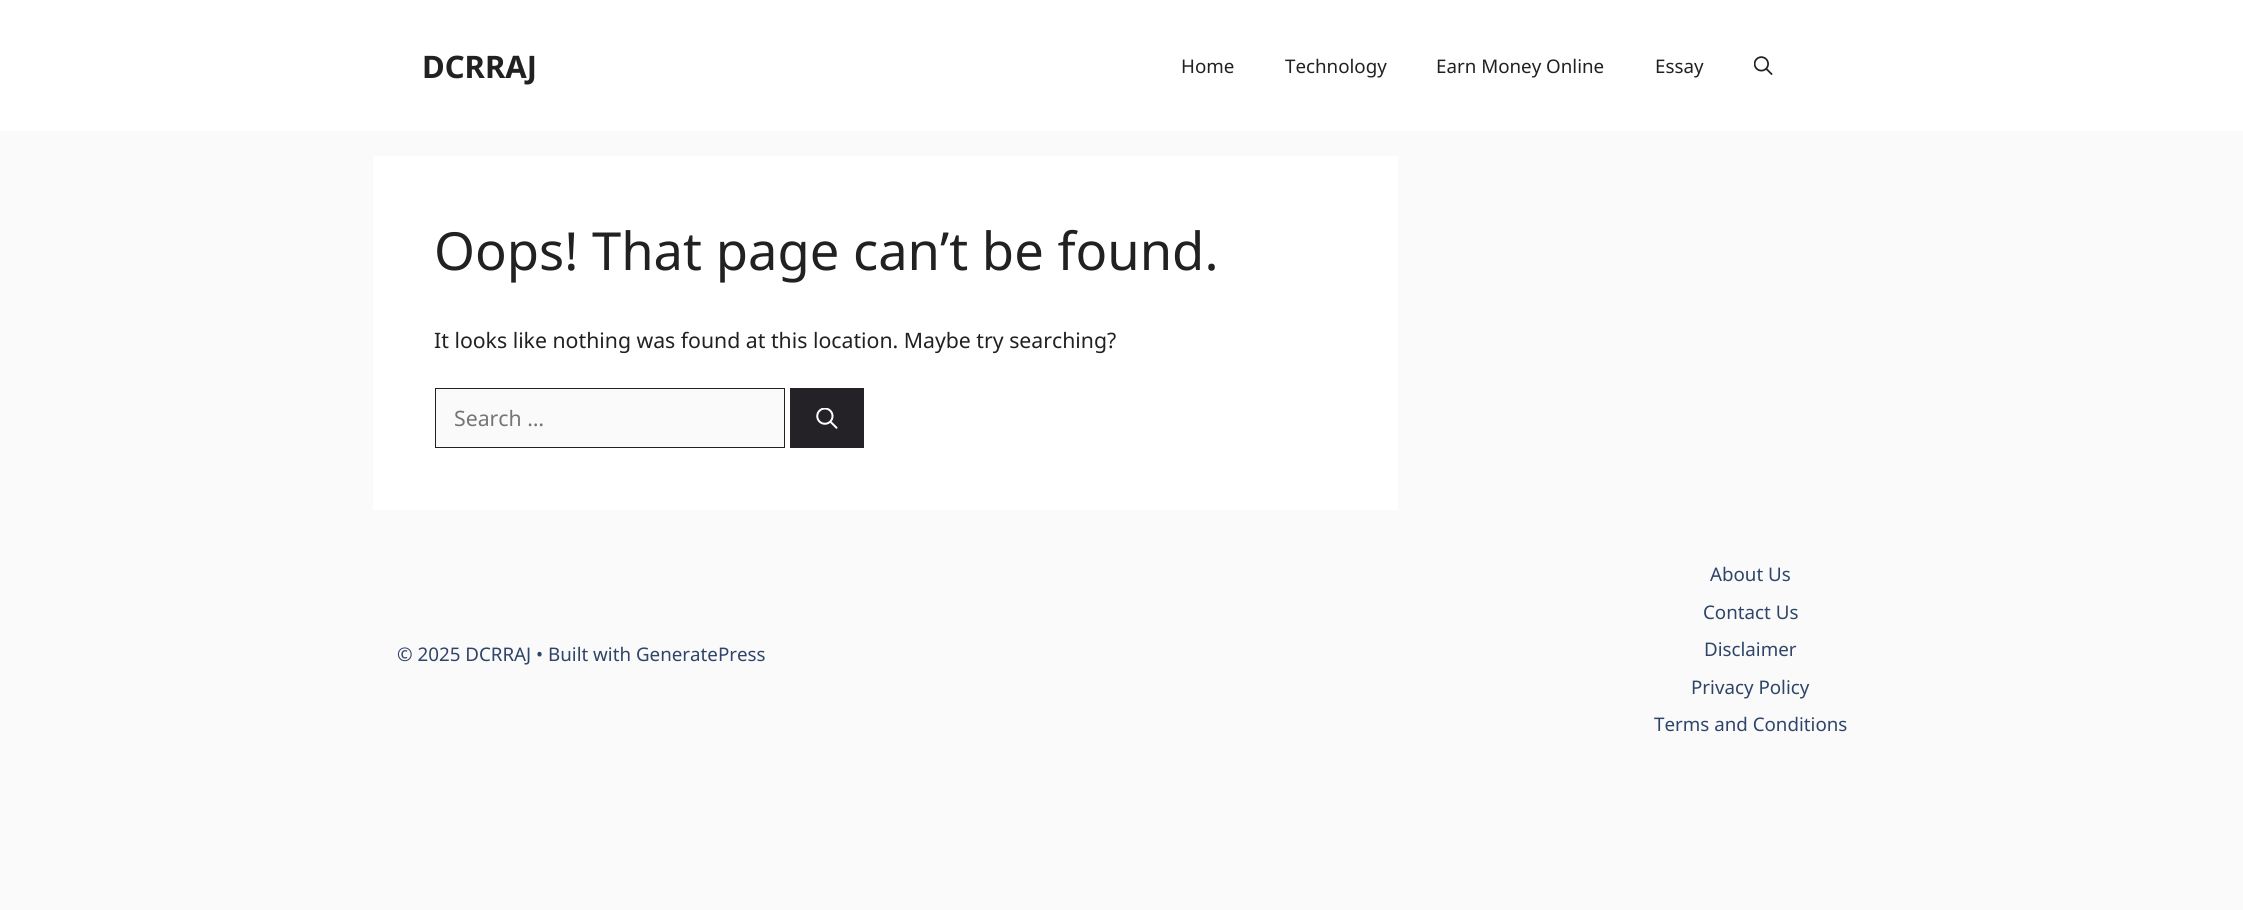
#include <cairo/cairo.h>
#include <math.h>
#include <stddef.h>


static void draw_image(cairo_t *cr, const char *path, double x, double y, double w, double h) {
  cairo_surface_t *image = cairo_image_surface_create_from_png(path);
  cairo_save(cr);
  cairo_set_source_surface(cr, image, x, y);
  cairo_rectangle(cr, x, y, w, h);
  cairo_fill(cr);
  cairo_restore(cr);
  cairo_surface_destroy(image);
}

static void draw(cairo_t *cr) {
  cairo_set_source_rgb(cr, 250 / 255.0, 250 / 255.0, 250 / 255.0);
  cairo_paint(cr);
  cairo_set_source_rgb(cr, 1, 1, 1);
  cairo_rectangle(cr, 0, 0, 2243, 131);
  cairo_fill(cr);
  draw_image(cr, "images/1.png", 1754, 56, 19, 19);
  cairo_rectangle(cr, 373, 156, 1025, 354);
  cairo_fill(cr);
  cairo_set_source_rgb(cr, 250 / 255.0, 250 / 255.0, 250 / 255.0);
  cairo_rectangle(cr, 435.5, 388.5, 349, 59);
  cairo_fill_preserve(cr);
  cairo_set_source_rgb(cr, 33 / 255.0, 33 / 255.0, 33 / 255.0);
  cairo_set_line_width(cr, 1);
  cairo_stroke(cr);
  cairo_set_source_rgb(cr, 36 / 255.0, 34 / 255.0, 38 / 255.0);
  cairo_rectangle(cr, 790, 388, 74, 60);
  cairo_fill(cr);
  draw_image(cr, "images/2.png", 816, 408, 22, 21);
  cairo_select_font_face(cr, "Noto Sans", CAIRO_FONT_SLANT_NORMAL, CAIRO_FONT_WEIGHT_BOLD);
  cairo_set_font_size(cr, 31);
  cairo_set_source_rgb(cr, 33 / 255.0, 33 / 255.0, 33 / 255.0);
  cairo_move_to(cr, 422, 78);
  cairo_show_text(cr, "DCRRAJ");
  cairo_select_font_face(cr, "Noto Sans", CAIRO_FONT_SLANT_NORMAL, CAIRO_FONT_WEIGHT_NORMAL);
  cairo_set_font_size(cr, 18.75);
  cairo_move_to(cr, 1181, 73);
  cairo_show_text(cr, "Home");
  cairo_move_to(cr, 1285, 73);
  cairo_show_text(cr, "Technology");
  cairo_move_to(cr, 1436, 73);
  cairo_show_text(cr, "Earn Money Online");
  cairo_move_to(cr, 1655, 73);
  cairo_show_text(cr, "Essay");
  cairo_set_font_size(cr, 52.5);
  cairo_move_to(cr, 434, 270);
  cairo_show_text(cr, "Oops! That page can’t be found.");
  cairo_set_font_size(cr, 21.25);
  cairo_move_to(cr, 434, 348);
  cairo_show_text(cr, "It looks like nothing was found at this location. Maybe try searching?");
  cairo_set_source_rgb(cr, 117 / 255.0, 117 / 255.0, 117 / 255.0);
  cairo_move_to(cr, 454, 426);
  cairo_show_text(cr, "Search …");
  cairo_set_font_size(cr, 18.75);
  cairo_set_source_rgb(cr, 47 / 255.0, 68 / 255.0, 104 / 255.0);
  cairo_move_to(cr, 397, 661);
  cairo_show_text(cr, "© 2025 DCRRAJ • Built with GeneratePress");
  cairo_move_to(cr, 1710, 581);
  cairo_show_text(cr, "About Us");
  cairo_move_to(cr, 1703, 619);
  cairo_show_text(cr, "Contact Us");
  cairo_move_to(cr, 1704, 656);
  cairo_show_text(cr, "Disclaimer");
  cairo_move_to(cr, 1691, 694);
  cairo_show_text(cr, "Privacy Policy");
  cairo_move_to(cr, 1654, 731);
  cairo_show_text(cr, "Terms and Conditions");
}

int main(void) {
  cairo_surface_t *surface = cairo_image_surface_create(CAIRO_FORMAT_RGB24, 2243, 910);
  cairo_t *cr = cairo_create(surface);
  cairo_font_options_t *options = cairo_font_options_create();
  cairo_font_options_set_hint_metrics(options, CAIRO_HINT_METRICS_OFF);
  cairo_font_options_set_hint_style(options, CAIRO_HINT_STYLE_NONE);
  cairo_set_font_options(cr, options);
  cairo_set_miter_limit(cr, 4);
  draw(cr);
  cairo_surface_write_to_png(surface, "out.png");
  cairo_font_options_destroy(options);
  cairo_destroy(cr);
  cairo_surface_destroy(surface);
  return 0;
}
